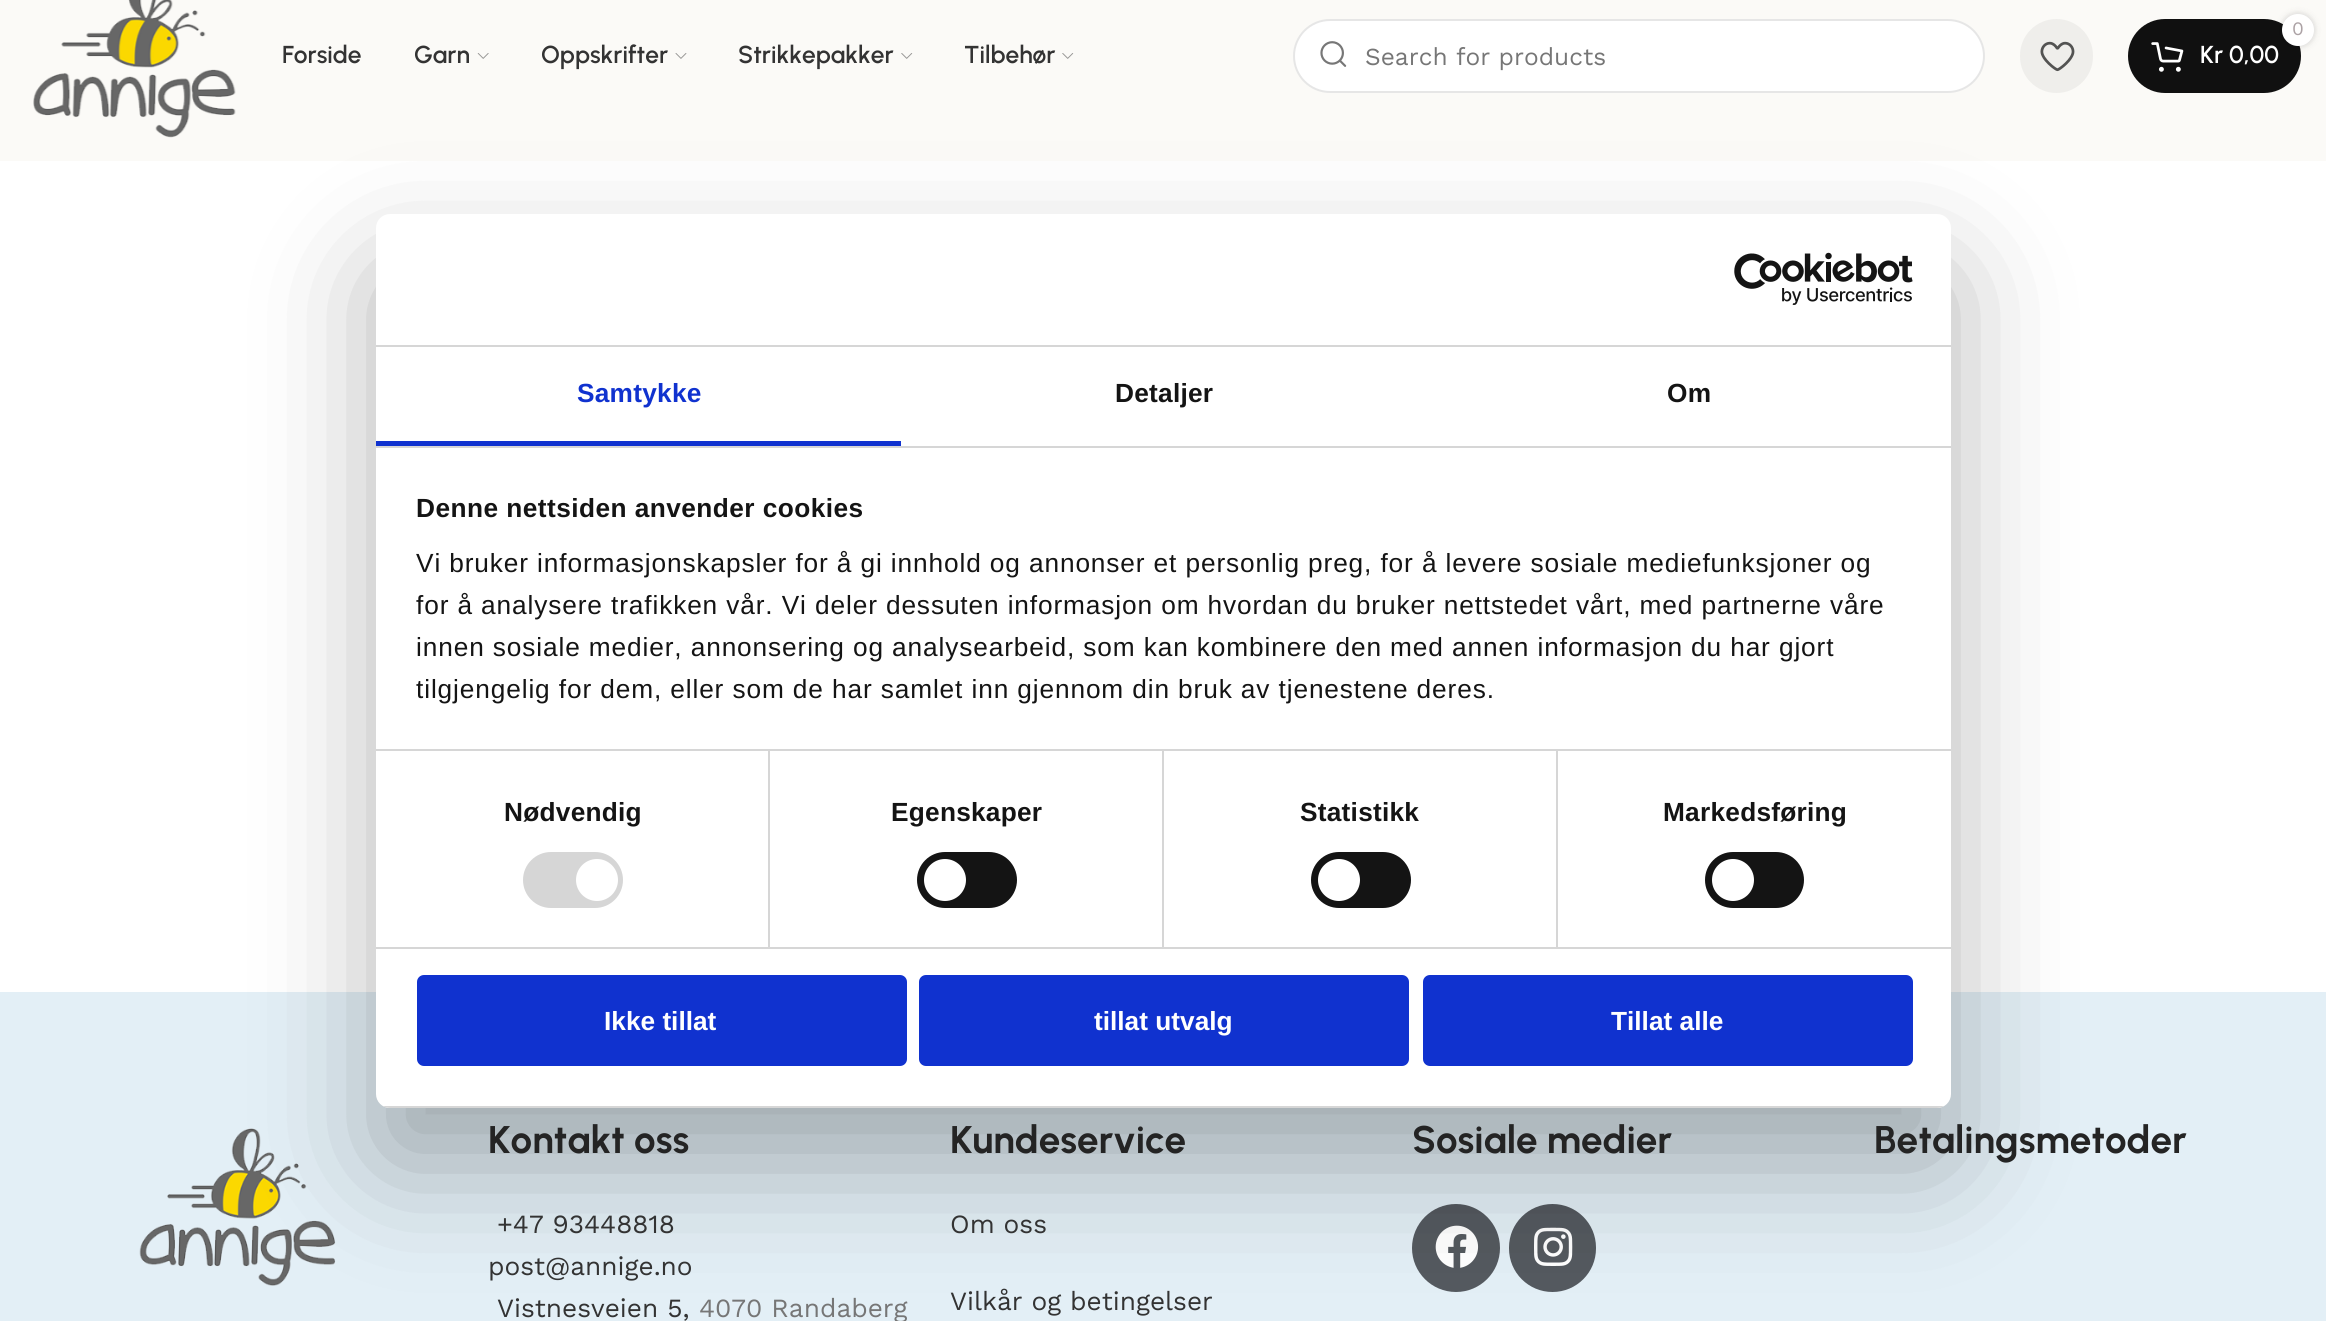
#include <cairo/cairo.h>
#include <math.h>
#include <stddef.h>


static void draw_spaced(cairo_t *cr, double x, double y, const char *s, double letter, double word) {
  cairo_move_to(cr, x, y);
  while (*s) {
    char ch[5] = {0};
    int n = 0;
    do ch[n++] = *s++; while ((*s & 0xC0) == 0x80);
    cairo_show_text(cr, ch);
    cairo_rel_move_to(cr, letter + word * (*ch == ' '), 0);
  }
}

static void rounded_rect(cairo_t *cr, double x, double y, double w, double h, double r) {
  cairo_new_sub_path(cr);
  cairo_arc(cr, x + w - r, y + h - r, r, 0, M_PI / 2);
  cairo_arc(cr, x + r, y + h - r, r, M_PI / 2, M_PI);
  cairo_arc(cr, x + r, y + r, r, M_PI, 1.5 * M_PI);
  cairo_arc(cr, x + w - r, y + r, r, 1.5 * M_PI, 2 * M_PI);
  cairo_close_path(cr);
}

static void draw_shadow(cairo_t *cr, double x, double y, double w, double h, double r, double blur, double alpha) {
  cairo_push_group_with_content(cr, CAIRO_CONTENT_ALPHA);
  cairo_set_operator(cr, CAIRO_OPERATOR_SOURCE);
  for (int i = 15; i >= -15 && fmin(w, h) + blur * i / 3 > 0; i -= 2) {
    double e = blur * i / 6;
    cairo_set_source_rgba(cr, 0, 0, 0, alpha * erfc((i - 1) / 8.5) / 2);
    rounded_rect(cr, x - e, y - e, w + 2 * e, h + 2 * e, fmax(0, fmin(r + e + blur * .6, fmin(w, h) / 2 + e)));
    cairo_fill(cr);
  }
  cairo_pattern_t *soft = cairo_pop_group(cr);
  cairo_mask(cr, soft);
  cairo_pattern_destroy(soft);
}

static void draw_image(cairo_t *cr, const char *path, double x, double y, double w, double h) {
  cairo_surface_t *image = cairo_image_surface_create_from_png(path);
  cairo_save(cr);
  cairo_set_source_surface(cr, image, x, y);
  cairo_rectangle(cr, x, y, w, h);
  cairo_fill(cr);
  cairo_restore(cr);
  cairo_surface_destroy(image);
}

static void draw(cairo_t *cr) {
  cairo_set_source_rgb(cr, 1, 1, 1);
  cairo_paint(cr);
  cairo_set_source_rgb(cr, 251 / 255.0, 250 / 255.0, 247 / 255.0);
  cairo_rectangle(cr, 0, 0, 2326, 161);
  cairo_fill(cr);
  draw_image(cr, "images/1.png", 33, 0, 203, 138);
  draw_image(cr, "images/2.png", 477, 53, 12, 6);
  draw_image(cr, "images/3.png", 675, 53, 12, 6);
  draw_image(cr, "images/4.png", 901, 53, 12, 6);
  draw_image(cr, "images/4.png", 1062, 53, 12, 6);
  cairo_set_source_rgb(cr, 1, 1, 1);
  rounded_rect(cr, 1293, 19, 692, 74, 37);
  cairo_fill(cr);
  rounded_rect(cr, 1294, 20, 690, 72, 36);
  cairo_set_source_rgba(cr, 0, 0, 0, 0.1);
  cairo_stroke(cr);
  draw_image(cr, "images/5.png", 1320, 41, 27, 26);
  cairo_set_source_rgb(cr, 239 / 255.0, 238 / 255.0, 235 / 255.0);
  rounded_rect(cr, 2020, 19, 73, 74, 36.5);
  cairo_fill(cr);
  draw_image(cr, "images/6.png", 2040, 41, 35, 31);
  cairo_set_source_rgb(cr, 16 / 255.0, 16 / 255.0, 16 / 255.0);
  rounded_rect(cr, 2128, 19, 173, 74, 37);
  cairo_fill(cr);
  cairo_set_source_rgb(cr, 0, 0, 0);
  draw_shadow(cr, 2282, 14, 32, 32, 16, 3.5, 0.17);
  cairo_set_source_rgb(cr, 1, 1, 1);
  cairo_arc(cr, 2298, 30, 16, 0, 2 * M_PI);
  cairo_fill(cr);
  draw_image(cr, "images/7.png", 2151, 42, 33, 30);
  cairo_set_source_rgb(cr, 227 / 255.0, 239 / 255.0, 246 / 255.0);
  cairo_rectangle(cr, 0, 992, 2326, 329);
  cairo_fill(cr);
  draw_image(cr, "images/8.png", 139, 1128, 197, 158);
  cairo_set_source_rgb(cr, 84 / 255.0, 89 / 255.0, 95 / 255.0);
  cairo_arc(cr, 1456, 1248, 44, 0, 2 * M_PI);
  cairo_fill(cr);
  draw_image(cr, "images/9.png", 1435, 1225, 44, 43);
  rounded_rect(cr, 1509, 1204, 87, 88, 43.5);
  cairo_fill(cr);
  draw_image(cr, "images/10.png", 1534, 1227, 39, 39);
  cairo_set_source_rgb(cr, 0, 0, 0);
  draw_shadow(cr, 376, 270, 1575, 894, 14, 59.5, 0.3);
  cairo_set_source_rgb(cr, 1, 1, 1);
  rounded_rect(cr, 376, 214, 1575, 894, 14);
  cairo_fill(cr);
  cairo_set_source_rgb(cr, 214 / 255.0, 214 / 255.0, 214 / 255.0);
  cairo_rectangle(cr, 376, 345, 1575, 2);
  cairo_fill(cr);
  draw_image(cr, "images/11.png", 1734, 252, 179, 53);
  cairo_rectangle(cr, 376, 446, 1575, 2);
  cairo_fill(cr);
  cairo_set_source_rgb(cr, 16 / 255.0, 50 / 255.0, 207 / 255.0);
  cairo_rectangle(cr, 376, 441, 525, 5);
  cairo_fill(cr);
  cairo_set_source_rgb(cr, 214 / 255.0, 214 / 255.0, 214 / 255.0);
  cairo_rectangle(cr, 376, 749, 1575, 2);
  cairo_fill(cr);
  cairo_rectangle(cr, 376, 947, 1575, 2);
  cairo_fill(cr);
  cairo_rectangle(cr, 768, 751, 2, 196);
  cairo_fill(cr);
  rounded_rect(cr, 523, 852, 100, 56, 28);
  cairo_fill(cr);
  cairo_set_source_rgb(cr, 1, 1, 1);
  cairo_arc(cr, 597, 880, 21, 0, 2 * M_PI);
  cairo_fill(cr);
  cairo_set_source_rgb(cr, 214 / 255.0, 214 / 255.0, 214 / 255.0);
  cairo_rectangle(cr, 1162, 751, 2, 196);
  cairo_fill(cr);
  cairo_set_source_rgb(cr, 20 / 255.0, 20 / 255.0, 20 / 255.0);
  rounded_rect(cr, 917, 852, 100, 56, 28);
  cairo_fill(cr);
  cairo_set_source_rgb(cr, 1, 1, 1);
  cairo_arc(cr, 945, 880, 21, 0, 2 * M_PI);
  cairo_fill(cr);
  cairo_set_source_rgb(cr, 214 / 255.0, 214 / 255.0, 214 / 255.0);
  cairo_rectangle(cr, 1556, 751, 2, 196);
  cairo_fill(cr);
  cairo_set_source_rgb(cr, 20 / 255.0, 20 / 255.0, 20 / 255.0);
  rounded_rect(cr, 1311, 852, 100, 56, 28);
  cairo_fill(cr);
  cairo_set_source_rgb(cr, 1, 1, 1);
  cairo_arc(cr, 1339, 880, 21, 0, 2 * M_PI);
  cairo_fill(cr);
  cairo_set_source_rgb(cr, 20 / 255.0, 20 / 255.0, 20 / 255.0);
  rounded_rect(cr, 1705, 852, 99, 56, 28);
  cairo_fill(cr);
  cairo_set_source_rgb(cr, 1, 1, 1);
  cairo_arc(cr, 1733, 880, 21, 0, 2 * M_PI);
  cairo_fill(cr);
  cairo_save(cr);
  rounded_rect(cr, 376, 214, 1575, 894, 14);
  cairo_clip(cr);
  cairo_set_source_rgb(cr, 214 / 255.0, 214 / 255.0, 214 / 255.0);
  cairo_rectangle(cr, 376, 1106, 1575, 2);
  cairo_fill(cr);
  cairo_restore(cr);
  cairo_set_source_rgb(cr, 16 / 255.0, 50 / 255.0, 207 / 255.0);
  rounded_rect(cr, 419, 977, 486, 87, 5);
  cairo_fill_preserve(cr);
  cairo_set_line_width(cr, 4);
  cairo_stroke(cr);
  rounded_rect(cr, 921, 977, 486, 87, 5);
  cairo_fill_preserve(cr);
  cairo_stroke(cr);
  rounded_rect(cr, 1425, 977, 486, 87, 5);
  cairo_fill_preserve(cr);
  cairo_stroke(cr);
  cairo_select_font_face(cr, "Urbanist SemiBold", CAIRO_FONT_SLANT_NORMAL, CAIRO_FONT_WEIGHT_NORMAL);
  cairo_set_font_size(cr, 24.5);
  cairo_set_source_rgb(cr, 51 / 255.0, 51 / 255.0, 51 / 255.0);
  cairo_move_to(cr, 282, 63);
  cairo_show_text(cr, "Forside");
  cairo_move_to(cr, 414, 63);
  cairo_show_text(cr, "Garn");
  cairo_move_to(cr, 541, 63);
  cairo_show_text(cr, "Oppskrifter");
  cairo_move_to(cr, 738, 63);
  cairo_show_text(cr, "Strikkepakker");
  cairo_move_to(cr, 964, 63);
  cairo_show_text(cr, "Tilbehør");
  cairo_select_font_face(cr, "Work Sans", CAIRO_FONT_SLANT_NORMAL, CAIRO_FONT_WEIGHT_NORMAL);
  cairo_set_source_rgb(cr, 118 / 255.0, 118 / 255.0, 118 / 255.0);
  cairo_move_to(cr, 1365, 65);
  cairo_show_text(cr, "Search for products");
  cairo_set_font_size(cr, 19);
  cairo_set_source_rgb(cr, 172 / 255.0, 162 / 255.0, 165 / 255.0);
  cairo_move_to(cr, 2292, 35);
  cairo_show_text(cr, "0");
  cairo_select_font_face(cr, "Urbanist SemiBold", CAIRO_FONT_SLANT_NORMAL, CAIRO_FONT_WEIGHT_NORMAL);
  cairo_set_font_size(cr, 24.5);
  cairo_set_source_rgb(cr, 1, 1, 1);
  cairo_move_to(cr, 2200, 63);
  cairo_show_text(cr, "Kr 0,00");
  cairo_select_font_face(cr, "Urbanist", CAIRO_FONT_SLANT_NORMAL, CAIRO_FONT_WEIGHT_BOLD);
  cairo_set_font_size(cr, 38.5);
  cairo_set_source_rgb(cr, 36 / 255.0, 36 / 255.0, 36 / 255.0);
  cairo_move_to(cr, 488, 1153);
  cairo_show_text(cr, "Kontakt oss");
  cairo_select_font_face(cr, "Work Sans", CAIRO_FONT_SLANT_NORMAL, CAIRO_FONT_WEIGHT_NORMAL);
  cairo_set_font_size(cr, 26.25);
  cairo_set_source_rgb(cr, 51 / 255.0, 51 / 255.0, 51 / 255.0);
  cairo_move_to(cr, 497, 1233);
  cairo_show_text(cr, "+47 93448818");
  cairo_move_to(cr, 488, 1275);
  cairo_show_text(cr, "post@annige.no");
  cairo_move_to(cr, 497, 1317);
  cairo_show_text(cr, "Vistnesveien 5,");
  cairo_set_source_rgb(cr, 118 / 255.0, 118 / 255.0, 118 / 255.0);
  cairo_move_to(cr, 699, 1317);
  cairo_show_text(cr, "4070 Randaberg");
  cairo_select_font_face(cr, "Urbanist", CAIRO_FONT_SLANT_NORMAL, CAIRO_FONT_WEIGHT_BOLD);
  cairo_set_font_size(cr, 38.5);
  cairo_set_source_rgb(cr, 36 / 255.0, 36 / 255.0, 36 / 255.0);
  cairo_move_to(cr, 950, 1153);
  cairo_show_text(cr, "Kundeservice");
  cairo_select_font_face(cr, "Work Sans", CAIRO_FONT_SLANT_NORMAL, CAIRO_FONT_WEIGHT_NORMAL);
  cairo_set_font_size(cr, 26.25);
  cairo_set_source_rgb(cr, 51 / 255.0, 51 / 255.0, 51 / 255.0);
  cairo_move_to(cr, 950, 1233);
  cairo_show_text(cr, "Om oss");
  cairo_move_to(cr, 950, 1310);
  cairo_show_text(cr, "Vilkår og betingelser");
  cairo_select_font_face(cr, "Urbanist", CAIRO_FONT_SLANT_NORMAL, CAIRO_FONT_WEIGHT_BOLD);
  cairo_set_font_size(cr, 38.5);
  cairo_set_source_rgb(cr, 36 / 255.0, 36 / 255.0, 36 / 255.0);
  cairo_move_to(cr, 1412, 1153);
  cairo_show_text(cr, "Sosiale medier");
  cairo_move_to(cr, 1874, 1153);
  cairo_show_text(cr, "Betalingsmetoder");
  cairo_select_font_face(cr, "Liberation Sans", CAIRO_FONT_SLANT_NORMAL, CAIRO_FONT_WEIGHT_BOLD);
  cairo_set_font_size(cr, 26.25);
  cairo_set_source_rgb(cr, 16 / 255.0, 50 / 255.0, 207 / 255.0);
  draw_spaced(cr, 577, 402, "Samtykke", 0.25, 0);
  cairo_set_source_rgb(cr, 20 / 255.0, 20 / 255.0, 20 / 255.0);
  draw_spaced(cr, 1115, 402, "Detaljer", 0.25, 0);
  draw_spaced(cr, 1667, 402, "Om", 0.25, 0);
  draw_spaced(cr, 416, 517, "Denne nettsiden anvender cookies", 0.45, 0);
  cairo_select_font_face(cr, "Liberation Sans", CAIRO_FONT_SLANT_NORMAL, CAIRO_FONT_WEIGHT_NORMAL);
  draw_spaced(cr, 416, 572, "Vi bruker informasjonskapsler for å gi innhold og annonser et personlig preg, for å levere sosiale mediefunksjoner og", 0.88, 0);
  draw_spaced(cr, 416, 614, "for å analysere trafikken vår. Vi deler dessuten informasjon om hvordan du bruker nettstedet vårt, med partnerne våre", 0.88, 0);
  draw_spaced(cr, 416, 656, "innen sosiale medier, annonsering og analysearbeid, som kan kombinere den med annen informasjon du har gjort", 0.88, 0);
  draw_spaced(cr, 416, 698, "tilgjengelig for dem, eller som de har samlet inn gjennom din bruk av tjenestene deres.", 0.88, 0);
  cairo_select_font_face(cr, "Liberation Sans", CAIRO_FONT_SLANT_NORMAL, CAIRO_FONT_WEIGHT_BOLD);
  draw_spaced(cr, 504, 821, "Nødvendig", 0.25, 0);
  draw_spaced(cr, 891, 821, "Egenskaper", 0.25, 0);
  draw_spaced(cr, 1300, 821, "Statistikk", 0.25, 0);
  draw_spaced(cr, 1663, 821, "Markedsføring", 0.25, 0);
  cairo_set_source_rgb(cr, 1, 1, 1);
  cairo_move_to(cr, 604, 1030);
  cairo_show_text(cr, "Ikke tillat");
  cairo_move_to(cr, 1094, 1030);
  cairo_show_text(cr, "tillat utvalg");
  cairo_move_to(cr, 1611, 1030);
  cairo_show_text(cr, "Tillat alle");
}

int main(void) {
  cairo_surface_t *surface = cairo_image_surface_create(CAIRO_FORMAT_RGB24, 2326, 1321);
  cairo_t *cr = cairo_create(surface);
  cairo_font_options_t *options = cairo_font_options_create();
  cairo_font_options_set_hint_metrics(options, CAIRO_HINT_METRICS_OFF);
  cairo_font_options_set_hint_style(options, CAIRO_HINT_STYLE_NONE);
  cairo_set_font_options(cr, options);
  cairo_set_miter_limit(cr, 4);
  draw(cr);
  cairo_surface_write_to_png(surface, "out.png");
  cairo_font_options_destroy(options);
  cairo_destroy(cr);
  cairo_surface_destroy(surface);
  return 0;
}
